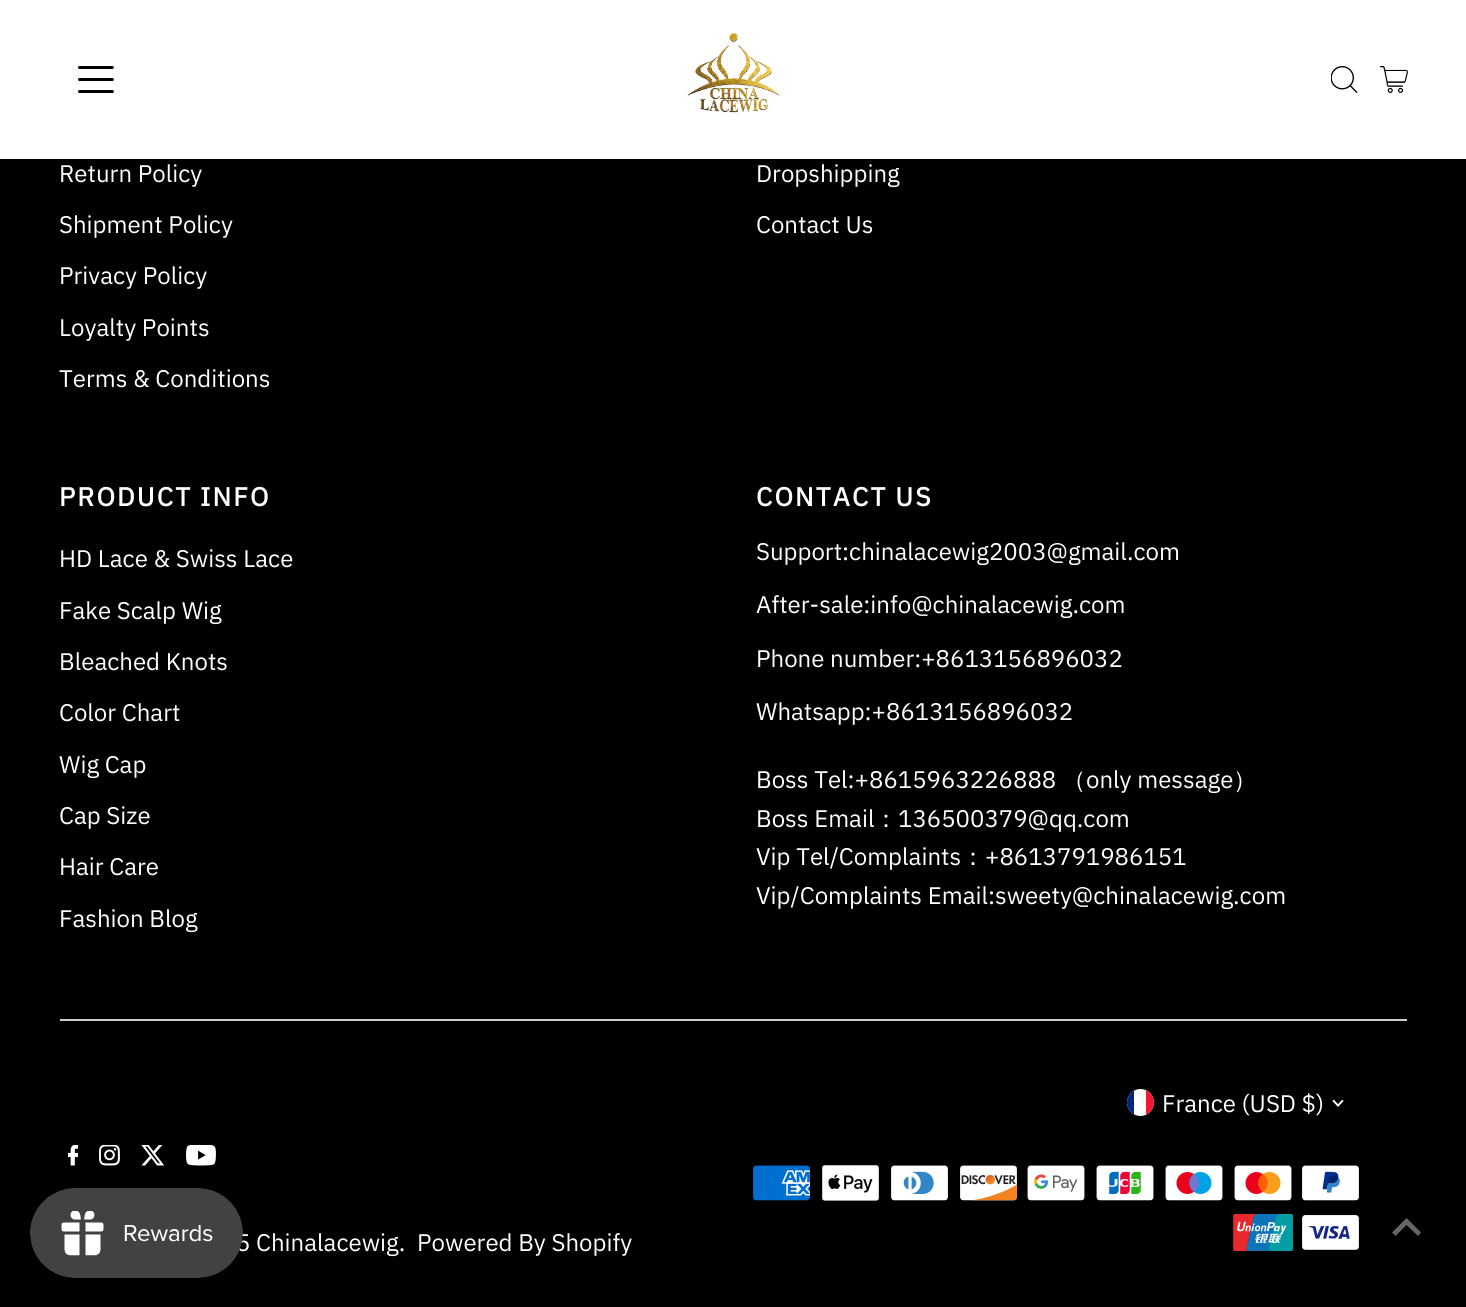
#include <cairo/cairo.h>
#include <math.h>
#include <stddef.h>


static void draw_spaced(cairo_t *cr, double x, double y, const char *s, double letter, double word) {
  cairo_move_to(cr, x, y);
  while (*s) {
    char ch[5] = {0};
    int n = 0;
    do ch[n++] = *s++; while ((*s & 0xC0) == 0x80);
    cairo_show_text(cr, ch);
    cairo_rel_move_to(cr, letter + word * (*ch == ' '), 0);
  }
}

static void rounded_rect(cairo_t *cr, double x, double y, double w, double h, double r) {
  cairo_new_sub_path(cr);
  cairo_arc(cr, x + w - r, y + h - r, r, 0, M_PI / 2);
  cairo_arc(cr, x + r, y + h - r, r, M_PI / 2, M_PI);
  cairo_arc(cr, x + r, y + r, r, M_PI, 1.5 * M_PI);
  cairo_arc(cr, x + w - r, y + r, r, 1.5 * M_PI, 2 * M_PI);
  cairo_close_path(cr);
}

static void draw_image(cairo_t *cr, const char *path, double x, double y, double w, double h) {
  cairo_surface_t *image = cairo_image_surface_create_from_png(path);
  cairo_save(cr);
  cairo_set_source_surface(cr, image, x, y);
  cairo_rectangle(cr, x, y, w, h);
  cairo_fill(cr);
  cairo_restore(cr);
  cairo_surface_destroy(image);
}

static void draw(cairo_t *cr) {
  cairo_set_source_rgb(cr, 0, 0, 0);
  cairo_paint(cr);
  cairo_set_source_rgb(cr, 1, 1, 1);
  cairo_rectangle(cr, 0, 0, 1466, 159);
  cairo_fill(cr);
  draw_image(cr, "images/1.png", 78, 66, 36, 27);
  draw_image(cr, "images/2.png", 687, 33, 93, 80);
  draw_image(cr, "images/3.png", 1331, 66, 27, 27);
  draw_image(cr, "images/4.png", 1380, 66, 28, 27);
  cairo_set_source_rgb(cr, 204 / 255.0, 204 / 255.0, 204 / 255.0);
  cairo_rectangle(cr, 60, 1019, 1347, 2);
  cairo_fill(cr);
  cairo_set_source_rgb(cr, 1, 1, 1);
  cairo_arc(cr, 1140.5, 1102.5, 13.5, 0, 2 * M_PI);
  cairo_fill(cr);
  cairo_save(cr);
  rounded_rect(cr, 1127, 1089, 27, 27, 13.5);
  cairo_clip(cr);
  cairo_set_source_rgb(cr, 0, 38 / 255.0, 127 / 255.0);
  cairo_rectangle(cr, 1127, 1089, 7, 27);
  cairo_fill(cr);
  cairo_set_source_rgb(cr, 243 / 255.0, 24 / 255.0, 48 / 255.0);
  cairo_rectangle(cr, 1146, 1089, 8, 27);
  cairo_fill(cr);
  cairo_restore(cr);
  draw_image(cr, "images/5.png", 1332, 1100, 12, 7);
  draw_image(cr, "images/6.png", 753, 1165, 57, 36);
  draw_image(cr, "images/7.png", 822, 1165, 57, 36);
  draw_image(cr, "images/8.png", 891, 1165, 57, 36);
  draw_image(cr, "images/9.png", 960, 1165, 57, 36);
  draw_image(cr, "images/10.png", 1027, 1165, 58, 36);
  draw_image(cr, "images/11.png", 1096, 1165, 58, 36);
  draw_image(cr, "images/12.png", 1165, 1165, 58, 36);
  draw_image(cr, "images/13.png", 1234, 1165, 58, 36);
  draw_image(cr, "images/14.png", 1302, 1165, 57, 36);
  draw_image(cr, "images/15.png", 1233, 1214, 60, 37);
  draw_image(cr, "images/16.png", 1302, 1215, 57, 35);
  draw_image(cr, "images/17.png", 68, 1145, 10, 21);
  draw_image(cr, "images/18.png", 99, 1145, 21, 21);
  draw_image(cr, "images/19.png", 141, 1145, 24, 21);
  draw_image(cr, "images/20.png", 186, 1145, 30, 21);
  cairo_set_source_rgb(cr, 102 / 255.0, 102 / 255.0, 102 / 255.0);
  cairo_new_path(cr);
  cairo_move_to(cr, 1406.5, 1218);
  cairo_line_to(cr, 1392, 1232.5);
  cairo_line_to(cr, 1395.5, 1236);
  cairo_line_to(cr, 1406.5, 1225);
  cairo_line_to(cr, 1418, 1236);
  cairo_line_to(cr, 1421, 1232.5);
  cairo_close_path(cr);
  cairo_fill(cr);
  cairo_select_font_face(cr, "IBM Plex Sans", CAIRO_FONT_SLANT_NORMAL, CAIRO_FONT_WEIGHT_NORMAL);
  cairo_set_font_size(cr, 24);
  cairo_set_source_rgb(cr, 1, 1, 1);
  cairo_move_to(cr, 59, 182);
  cairo_show_text(cr, "Return Policy");
  cairo_move_to(cr, 59, 233);
  cairo_show_text(cr, "Shipment Policy");
  cairo_move_to(cr, 59, 284);
  cairo_show_text(cr, "Privacy Policy");
  cairo_move_to(cr, 59, 336);
  cairo_show_text(cr, "Loyalty Points");
  cairo_move_to(cr, 59, 387);
  cairo_show_text(cr, "Terms & Conditions");
  cairo_move_to(cr, 756, 182);
  cairo_show_text(cr, "Dropshipping");
  cairo_move_to(cr, 756, 233);
  cairo_show_text(cr, "Contact Us");
  cairo_select_font_face(cr, "IBM Plex Sans Medium", CAIRO_FONT_SLANT_NORMAL, CAIRO_FONT_WEIGHT_NORMAL);
  cairo_set_font_size(cr, 27);
  draw_spaced(cr, 59, 506, "PRODUCT INFO", 1.4, 0);
  cairo_select_font_face(cr, "IBM Plex Sans", CAIRO_FONT_SLANT_NORMAL, CAIRO_FONT_WEIGHT_NORMAL);
  cairo_set_font_size(cr, 24);
  cairo_move_to(cr, 59, 567);
  cairo_show_text(cr, "HD Lace & Swiss Lace");
  cairo_move_to(cr, 59, 619);
  cairo_show_text(cr, "Fake Scalp Wig");
  cairo_move_to(cr, 59, 670);
  cairo_show_text(cr, "Bleached Knots");
  cairo_move_to(cr, 59, 721);
  cairo_show_text(cr, "Color Chart");
  cairo_move_to(cr, 59, 773);
  cairo_show_text(cr, "Wig Cap");
  cairo_move_to(cr, 59, 824);
  cairo_show_text(cr, "Cap Size");
  cairo_move_to(cr, 59, 875);
  cairo_show_text(cr, "Hair Care");
  cairo_move_to(cr, 59, 927);
  cairo_show_text(cr, "Fashion Blog");
  cairo_select_font_face(cr, "IBM Plex Sans Medium", CAIRO_FONT_SLANT_NORMAL, CAIRO_FONT_WEIGHT_NORMAL);
  cairo_set_font_size(cr, 27);
  draw_spaced(cr, 756, 506, "CONTACT US", 1.4, 0);
  cairo_select_font_face(cr, "IBM Plex Sans", CAIRO_FONT_SLANT_NORMAL, CAIRO_FONT_WEIGHT_NORMAL);
  cairo_set_font_size(cr, 24);
  cairo_move_to(cr, 756, 560);
  cairo_show_text(cr, "Support:chinalacewig2003@gmail.com");
  cairo_move_to(cr, 756, 613);
  cairo_show_text(cr, "After-sale:info@chinalacewig.com");
  cairo_move_to(cr, 756, 667);
  cairo_show_text(cr, "Phone number:+8613156896032");
  cairo_move_to(cr, 756, 720);
  cairo_show_text(cr, "Whatsapp:+8613156896032");
  cairo_move_to(cr, 756, 788);
  cairo_show_text(cr, "Boss Tel:+8615963226888");
  cairo_select_font_face(cr, "WenQuanYi Zen Hei Medium", CAIRO_FONT_SLANT_NORMAL, CAIRO_FONT_WEIGHT_NORMAL);
  cairo_move_to(cr, 1062, 788);
  cairo_show_text(cr, "（");
  cairo_select_font_face(cr, "IBM Plex Sans", CAIRO_FONT_SLANT_NORMAL, CAIRO_FONT_WEIGHT_NORMAL);
  cairo_move_to(cr, 1086, 788);
  cairo_show_text(cr, "only message");
  cairo_select_font_face(cr, "WenQuanYi Zen Hei Medium", CAIRO_FONT_SLANT_NORMAL, CAIRO_FONT_WEIGHT_NORMAL);
  cairo_move_to(cr, 1233, 788);
  cairo_show_text(cr, "）");
  cairo_select_font_face(cr, "IBM Plex Sans", CAIRO_FONT_SLANT_NORMAL, CAIRO_FONT_WEIGHT_NORMAL);
  cairo_move_to(cr, 756, 827);
  cairo_show_text(cr, "Boss Email");
  cairo_select_font_face(cr, "WenQuanYi Zen Hei Medium", CAIRO_FONT_SLANT_NORMAL, CAIRO_FONT_WEIGHT_NORMAL);
  cairo_move_to(cr, 874, 827);
  cairo_show_text(cr, "：");
  cairo_select_font_face(cr, "IBM Plex Sans", CAIRO_FONT_SLANT_NORMAL, CAIRO_FONT_WEIGHT_NORMAL);
  cairo_move_to(cr, 898, 827);
  cairo_show_text(cr, "136500379@qq.com");
  cairo_move_to(cr, 756, 865);
  cairo_show_text(cr, "Vip Tel/Complaints");
  cairo_select_font_face(cr, "WenQuanYi Zen Hei Medium", CAIRO_FONT_SLANT_NORMAL, CAIRO_FONT_WEIGHT_NORMAL);
  cairo_move_to(cr, 961, 865);
  cairo_show_text(cr, "：");
  cairo_select_font_face(cr, "IBM Plex Sans", CAIRO_FONT_SLANT_NORMAL, CAIRO_FONT_WEIGHT_NORMAL);
  cairo_move_to(cr, 985, 865);
  cairo_show_text(cr, "+8613791986151");
  cairo_move_to(cr, 756, 904);
  cairo_show_text(cr, "Vip/Complaints Email:sweety@chinalacewig.com");
  cairo_move_to(cr, 1162, 1112);
  cairo_show_text(cr, "France (USD $)");
  cairo_move_to(cr, 236, 1251);
  cairo_show_text(cr, "5 Chinalacewig.");
  cairo_move_to(cr, 417, 1251);
  cairo_show_text(cr, "Powered By Shopify");
  draw_image(cr, "images/21.png", 30, 1188, 213, 90);
}

int main(void) {
  cairo_surface_t *surface = cairo_image_surface_create(CAIRO_FORMAT_RGB24, 1466, 1307);
  cairo_t *cr = cairo_create(surface);
  cairo_font_options_t *options = cairo_font_options_create();
  cairo_font_options_set_hint_metrics(options, CAIRO_HINT_METRICS_OFF);
  cairo_font_options_set_hint_style(options, CAIRO_HINT_STYLE_NONE);
  cairo_set_font_options(cr, options);
  cairo_set_miter_limit(cr, 4);
  draw(cr);
  cairo_surface_write_to_png(surface, "out.png");
  cairo_font_options_destroy(options);
  cairo_destroy(cr);
  cairo_surface_destroy(surface);
  return 0;
}
